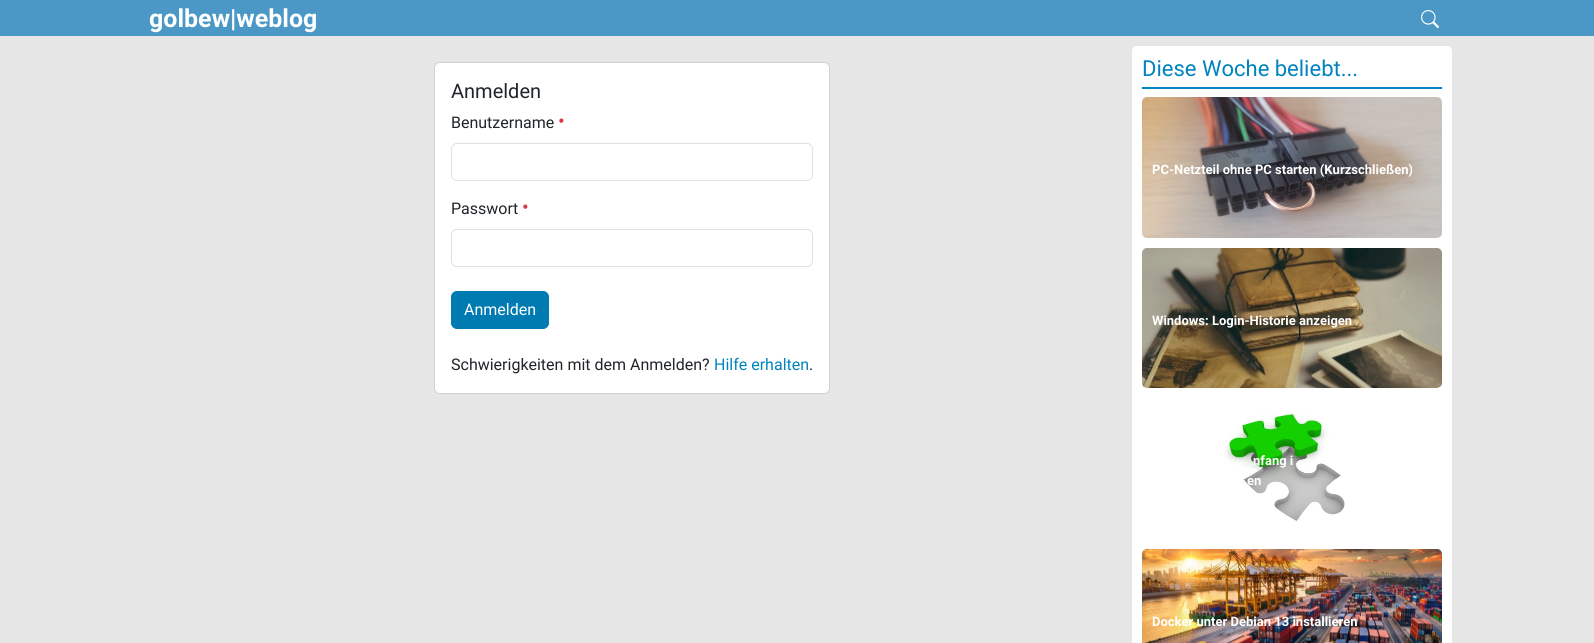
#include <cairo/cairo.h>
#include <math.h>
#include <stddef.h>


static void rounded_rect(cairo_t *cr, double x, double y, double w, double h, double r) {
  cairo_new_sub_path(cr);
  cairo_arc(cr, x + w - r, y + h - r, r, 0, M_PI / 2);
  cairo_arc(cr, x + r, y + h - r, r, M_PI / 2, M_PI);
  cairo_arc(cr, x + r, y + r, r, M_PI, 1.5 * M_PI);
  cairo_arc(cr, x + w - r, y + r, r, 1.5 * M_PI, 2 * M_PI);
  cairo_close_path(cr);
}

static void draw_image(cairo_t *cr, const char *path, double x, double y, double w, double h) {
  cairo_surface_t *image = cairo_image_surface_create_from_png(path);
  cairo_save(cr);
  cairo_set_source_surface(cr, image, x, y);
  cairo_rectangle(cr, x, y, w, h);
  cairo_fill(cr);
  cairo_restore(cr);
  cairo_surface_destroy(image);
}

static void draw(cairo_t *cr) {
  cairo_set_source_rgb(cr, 230 / 255.0, 230 / 255.0, 230 / 255.0);
  cairo_paint(cr);
  cairo_set_source_rgb(cr, 75 / 255.0, 151 / 255.0, 198 / 255.0);
  cairo_rectangle(cr, 0, 0, 1594, 36);
  cairo_fill(cr);
  draw_image(cr, "images/1.png", 1421, 10, 18, 18);
  cairo_set_source_rgb(cr, 1, 1, 1);
  rounded_rect(cr, 434, 62, 396, 332, 6);
  cairo_fill(cr);
  rounded_rect(cr, 434.5, 62.5, 395, 331, 5.5);
  cairo_set_source_rgba(cr, 0, 0, 0, 0.18);
  cairo_set_line_width(cr, 1);
  cairo_stroke(cr);
  rounded_rect(cr, 451.5, 143.5, 361, 37, 5.5);
  cairo_set_source_rgb(cr, 222 / 255.0, 226 / 255.0, 230 / 255.0);
  cairo_stroke(cr);
  rounded_rect(cr, 451.5, 229.5, 361, 37, 5.5);
  cairo_stroke(cr);
  cairo_set_source_rgb(cr, 0, 123 / 255.0, 177 / 255.0);
  rounded_rect(cr, 451.5, 291.5, 97, 37, 5.5);
  cairo_fill_preserve(cr);
  cairo_stroke(cr);
  cairo_set_source_rgb(cr, 1, 1, 1);
  rounded_rect(cr, 1132, 46, 320, 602, 5);
  cairo_fill(cr);
  cairo_set_source_rgb(cr, 0, 131 / 255.0, 190 / 255.0);
  cairo_rectangle(cr, 1142, 87, 300, 2);
  cairo_fill(cr);
  draw_image(cr, "images/2.png", 1142, 97, 300, 141);
  draw_image(cr, "images/3.png", 1142, 248, 300, 140);
  draw_image(cr, "images/4.png", 1222, 413, 123, 109);
  draw_image(cr, "images/5.png", 1142, 549, 300, 94);
  cairo_select_font_face(cr, "Roboto", CAIRO_FONT_SLANT_NORMAL, CAIRO_FONT_WEIGHT_BOLD);
  cairo_set_font_size(cr, 25);
  cairo_set_source_rgb(cr, 1, 1, 1);
  cairo_move_to(cr, 149, 27);
  cairo_show_text(cr, "golbew|weblog");
  cairo_select_font_face(cr, "Roboto", CAIRO_FONT_SLANT_NORMAL, CAIRO_FONT_WEIGHT_NORMAL);
  cairo_set_font_size(cr, 20);
  cairo_set_source_rgb(cr, 33 / 255.0, 37 / 255.0, 41 / 255.0);
  cairo_move_to(cr, 451, 98);
  cairo_show_text(cr, "Anmelden");
  cairo_set_font_size(cr, 16);
  cairo_move_to(cr, 451, 128);
  cairo_show_text(cr, "Benutzername");
  cairo_set_font_size(cr, 20);
  cairo_set_source_rgb(cr, 220 / 255.0, 53 / 255.0, 69 / 255.0);
  cairo_move_to(cr, 558, 128);
  cairo_show_text(cr, "•");
  cairo_set_font_size(cr, 16);
  cairo_set_source_rgb(cr, 33 / 255.0, 37 / 255.0, 41 / 255.0);
  cairo_move_to(cr, 451, 214);
  cairo_show_text(cr, "Passwort");
  cairo_set_font_size(cr, 20);
  cairo_set_source_rgb(cr, 220 / 255.0, 53 / 255.0, 69 / 255.0);
  cairo_move_to(cr, 522, 214);
  cairo_show_text(cr, "•");
  cairo_set_font_size(cr, 16);
  cairo_set_source_rgb(cr, 1, 1, 1);
  cairo_move_to(cr, 464, 315);
  cairo_show_text(cr, "Anmelden");
  cairo_set_source_rgb(cr, 33 / 255.0, 37 / 255.0, 41 / 255.0);
  cairo_move_to(cr, 451, 370);
  cairo_show_text(cr, "Schwierigkeiten mit dem Anmelden?");
  cairo_set_source_rgb(cr, 0, 131 / 255.0, 190 / 255.0);
  cairo_move_to(cr, 714, 370);
  cairo_show_text(cr, "Hilfe erhalten");
  cairo_set_source_rgb(cr, 33 / 255.0, 37 / 255.0, 41 / 255.0);
  cairo_move_to(cr, 809, 370);
  cairo_show_text(cr, ".");
  cairo_set_font_size(cr, 22);
  cairo_set_source_rgb(cr, 0, 131 / 255.0, 190 / 255.0);
  cairo_move_to(cr, 1142, 76);
  cairo_show_text(cr, "Diese Woche beliebt...");
  cairo_select_font_face(cr, "Roboto", CAIRO_FONT_SLANT_NORMAL, CAIRO_FONT_WEIGHT_BOLD);
  cairo_set_font_size(cr, 13);
  cairo_set_source_rgb(cr, 1, 1, 1);
  cairo_move_to(cr, 1152, 174);
  cairo_show_text(cr, "PC-Netzteil ohne PC starten (Kurzschließen)");
  cairo_move_to(cr, 1152, 325);
  cairo_show_text(cr, "Windows: Login-Historie anzeigen");
  cairo_move_to(cr, 1253, 465);
  cairo_show_text(cr, "nfang i");
  cairo_move_to(cr, 1247, 485);
  cairo_show_text(cr, "en");
  cairo_move_to(cr, 1152, 626);
  cairo_show_text(cr, "Docker unter Debian 13 installieren");
}

int main(void) {
  cairo_surface_t *surface = cairo_image_surface_create(CAIRO_FORMAT_RGB24, 1594, 643);
  cairo_t *cr = cairo_create(surface);
  cairo_font_options_t *options = cairo_font_options_create();
  cairo_font_options_set_hint_metrics(options, CAIRO_HINT_METRICS_OFF);
  cairo_font_options_set_hint_style(options, CAIRO_HINT_STYLE_NONE);
  cairo_set_font_options(cr, options);
  cairo_set_miter_limit(cr, 4);
  draw(cr);
  cairo_surface_write_to_png(surface, "out.png");
  cairo_font_options_destroy(options);
  cairo_destroy(cr);
  cairo_surface_destroy(surface);
  return 0;
}
